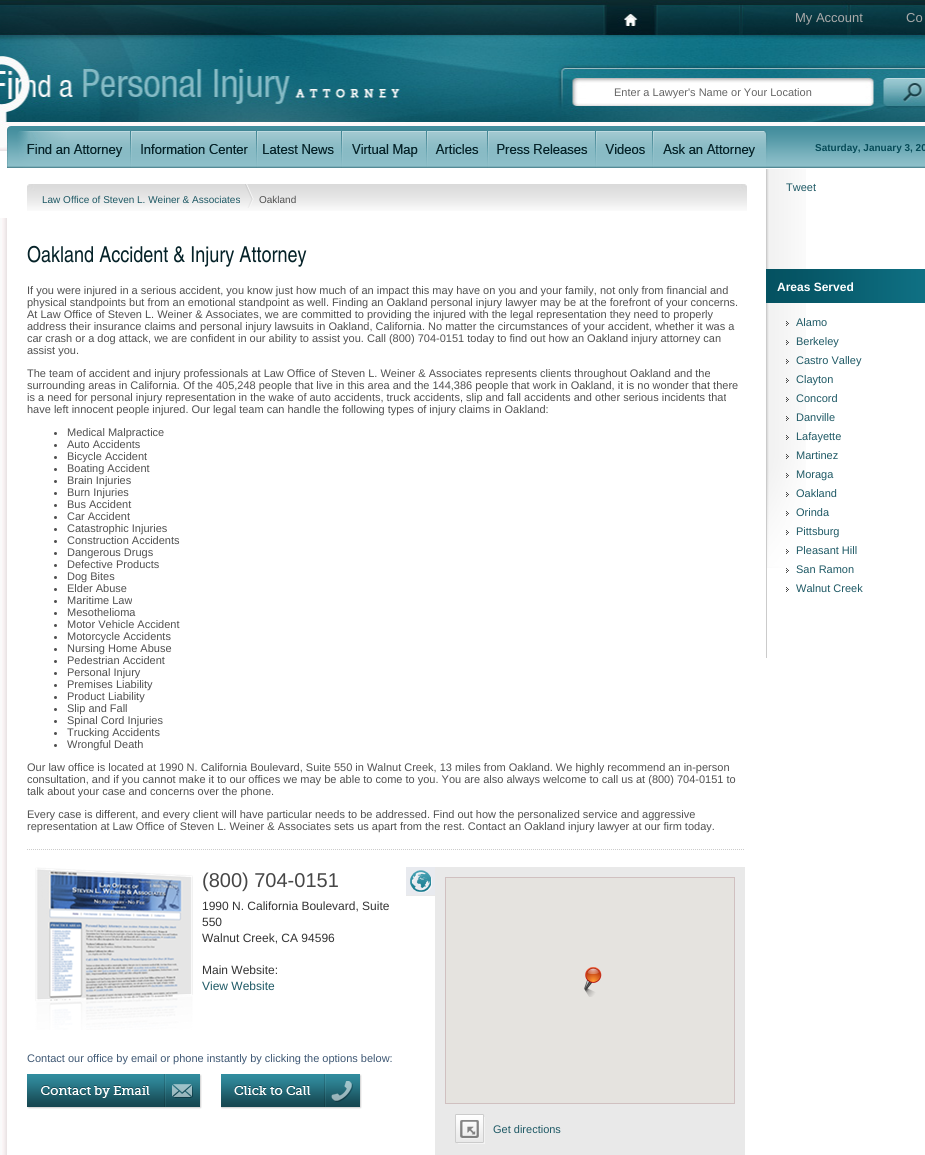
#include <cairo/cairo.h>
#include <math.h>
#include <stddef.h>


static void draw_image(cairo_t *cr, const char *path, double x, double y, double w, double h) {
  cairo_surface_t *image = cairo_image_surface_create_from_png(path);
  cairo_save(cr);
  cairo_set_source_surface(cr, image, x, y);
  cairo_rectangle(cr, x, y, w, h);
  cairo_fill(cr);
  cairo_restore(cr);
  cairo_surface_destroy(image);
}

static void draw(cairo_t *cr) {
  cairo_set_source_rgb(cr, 250 / 255.0, 250 / 255.0, 250 / 255.0);
  cairo_paint(cr);
  draw_image(cr, "images/1.png", 0, 0, 925, 218);
  draw_image(cr, "images/2.png", 7, 126, 124, 42);
  draw_image(cr, "images/3.png", 131, 126, 126, 42);
  draw_image(cr, "images/4.png", 257, 126, 85, 42);
  draw_image(cr, "images/5.png", 342, 126, 85, 42);
  draw_image(cr, "images/6.png", 427, 126, 61, 42);
  draw_image(cr, "images/7.png", 488, 126, 108, 42);
  draw_image(cr, "images/8.png", 596, 126, 57, 42);
  draw_image(cr, "images/9.png", 653, 126, 114, 42);
  draw_image(cr, "images/10.png", 767, 126, 158, 42);
  draw_image(cr, "images/11.png", 2, 218, 923, 937);
  draw_image(cr, "images/12.png", 27, 184, 720, 27);
  draw_image(cr, "images/13.png", 245, 184, 9, 24);
  cairo_set_source_rgb(cr, 80 / 255.0, 80 / 255.0, 80 / 255.0);
  cairo_arc(cr, 55.5, 433.5, 1.5, 0, 2 * M_PI);
  cairo_fill(cr);
  cairo_arc(cr, 55.5, 445.5, 1.5, 0, 2 * M_PI);
  cairo_fill(cr);
  cairo_arc(cr, 55.5, 457.5, 1.5, 0, 2 * M_PI);
  cairo_fill(cr);
  cairo_arc(cr, 55.5, 469.5, 1.5, 0, 2 * M_PI);
  cairo_fill(cr);
  cairo_arc(cr, 55.5, 481.5, 1.5, 0, 2 * M_PI);
  cairo_fill(cr);
  cairo_arc(cr, 55.5, 493.5, 1.5, 0, 2 * M_PI);
  cairo_fill(cr);
  cairo_arc(cr, 55.5, 505.5, 1.5, 0, 2 * M_PI);
  cairo_fill(cr);
  cairo_arc(cr, 55.5, 517.5, 1.5, 0, 2 * M_PI);
  cairo_fill(cr);
  cairo_arc(cr, 55.5, 529.5, 1.5, 0, 2 * M_PI);
  cairo_fill(cr);
  cairo_arc(cr, 55.5, 541.5, 1.5, 0, 2 * M_PI);
  cairo_fill(cr);
  cairo_arc(cr, 55.5, 553.5, 1.5, 0, 2 * M_PI);
  cairo_fill(cr);
  cairo_arc(cr, 55.5, 565.5, 1.5, 0, 2 * M_PI);
  cairo_fill(cr);
  cairo_arc(cr, 55.5, 577.5, 1.5, 0, 2 * M_PI);
  cairo_fill(cr);
  cairo_arc(cr, 55.5, 589.5, 1.5, 0, 2 * M_PI);
  cairo_fill(cr);
  cairo_arc(cr, 55.5, 601.5, 1.5, 0, 2 * M_PI);
  cairo_fill(cr);
  cairo_arc(cr, 55.5, 613.5, 1.5, 0, 2 * M_PI);
  cairo_fill(cr);
  cairo_arc(cr, 55.5, 625.5, 1.5, 0, 2 * M_PI);
  cairo_fill(cr);
  cairo_arc(cr, 55.5, 637.5, 1.5, 0, 2 * M_PI);
  cairo_fill(cr);
  cairo_arc(cr, 55.5, 649.5, 1.5, 0, 2 * M_PI);
  cairo_fill(cr);
  cairo_arc(cr, 55.5, 661.5, 1.5, 0, 2 * M_PI);
  cairo_fill(cr);
  cairo_arc(cr, 55.5, 673.5, 1.5, 0, 2 * M_PI);
  cairo_fill(cr);
  cairo_arc(cr, 55.5, 685.5, 1.5, 0, 2 * M_PI);
  cairo_fill(cr);
  cairo_arc(cr, 55.5, 697.5, 1.5, 0, 2 * M_PI);
  cairo_fill(cr);
  cairo_arc(cr, 55.5, 709.5, 1.5, 0, 2 * M_PI);
  cairo_fill(cr);
  cairo_arc(cr, 55.5, 721.5, 1.5, 0, 2 * M_PI);
  cairo_fill(cr);
  cairo_arc(cr, 55.5, 733.5, 1.5, 0, 2 * M_PI);
  cairo_fill(cr);
  cairo_arc(cr, 55.5, 745.5, 1.5, 0, 2 * M_PI);
  cairo_fill(cr);
  cairo_new_path(cr);
  cairo_move_to(cr, 27, 849.5);
  cairo_line_to(cr, 745, 849.5);
  cairo_set_source_rgb(cr, 204 / 255.0, 204 / 255.0, 204 / 255.0);
  cairo_set_line_width(cr, 1);
  cairo_set_dash(cr, (double[]){1, 1}, 2, 0);
  cairo_stroke(cr);
  draw_image(cr, "images/14.png", 35, 867, 158, 163);
  draw_image(cr, "images/15.png", 27, 1074, 175, 35);
  draw_image(cr, "images/16.png", 221, 1074, 141, 35);
  cairo_set_source_rgb(cr, 233 / 255.0, 233 / 255.0, 233 / 255.0);
  cairo_rectangle(cr, 435, 867, 310, 288);
  cairo_fill(cr);
  draw_image(cr, "images/17.png", 406, 867, 29, 29);
  cairo_rectangle(cr, 445.5, 877.5, 289, 226);
  cairo_set_source_rgb(cr, 208 / 255.0, 192 / 255.0, 192 / 255.0);
  cairo_set_dash(cr, NULL, 0, 0);
  cairo_stroke(cr);
  cairo_set_source_rgb(cr, 229 / 255.0, 227 / 255.0, 223 / 255.0);
  cairo_rectangle(cr, 446, 878, 288, 225);
  cairo_fill(cr);
  draw_image(cr, "images/18.png", 584, 967, 18, 30);
  draw_image(cr, "images/19.png", 455, 1114, 30, 30);
  draw_image(cr, "images/20.png", 766, 169, 40, 489);
  draw_image(cr, "images/21.png", 766, 269, 159, 34);
  draw_image(cr, "images/22.png", 786, 321, 3, 5);
  draw_image(cr, "images/22.png", 786, 340, 3, 5);
  draw_image(cr, "images/22.png", 786, 359, 3, 5);
  draw_image(cr, "images/22.png", 786, 378, 3, 5);
  draw_image(cr, "images/22.png", 786, 397, 3, 5);
  draw_image(cr, "images/22.png", 786, 416, 3, 5);
  draw_image(cr, "images/22.png", 786, 435, 3, 5);
  draw_image(cr, "images/23.png", 786, 454, 3, 5);
  draw_image(cr, "images/24.png", 786, 473, 3, 5);
  draw_image(cr, "images/25.png", 786, 492, 3, 5);
  draw_image(cr, "images/26.png", 786, 511, 3, 5);
  draw_image(cr, "images/27.png", 786, 530, 3, 5);
  draw_image(cr, "images/28.png", 786, 549, 3, 5);
  draw_image(cr, "images/29.png", 786, 568, 3, 5);
  draw_image(cr, "images/29.png", 786, 587, 3, 5);
  cairo_select_font_face(cr, "Liberation Sans", CAIRO_FONT_SLANT_NORMAL, CAIRO_FONT_WEIGHT_NORMAL);
  cairo_set_font_size(cr, 13);
  cairo_set_source_rgb(cr, 170 / 255.0, 170 / 255.0, 170 / 255.0);
  cairo_move_to(cr, 795, 22);
  cairo_show_text(cr, "My Account");
  cairo_move_to(cr, 906, 22);
  cairo_show_text(cr, "Co");
  cairo_set_font_size(cr, 11);
  cairo_set_source_rgb(cr, 101 / 255.0, 101 / 255.0, 101 / 255.0);
  cairo_move_to(cr, 614, 96);
  cairo_show_text(cr, "Enter a Lawyer's Name or Your Location");
  cairo_select_font_face(cr, "Liberation Sans", CAIRO_FONT_SLANT_NORMAL, CAIRO_FONT_WEIGHT_BOLD);
  cairo_set_font_size(cr, 10);
  cairo_set_source_rgb(cr, 6 / 255.0, 75 / 255.0, 88 / 255.0);
  cairo_move_to(cr, 815, 151);
  cairo_show_text(cr, "Saturday, January 3, 20");
  cairo_select_font_face(cr, "Liberation Sans", CAIRO_FONT_SLANT_NORMAL, CAIRO_FONT_WEIGHT_NORMAL);
  cairo_set_source_rgb(cr, 30 / 255.0, 89 / 255.0, 101 / 255.0);
  cairo_move_to(cr, 42, 203);
  cairo_show_text(cr, "Law Office of Steven L. Weiner & Associates");
  cairo_set_source_rgb(cr, 80 / 255.0, 80 / 255.0, 80 / 255.0);
  cairo_move_to(cr, 259, 203);
  cairo_show_text(cr, "Oakland");
  cairo_select_font_face(cr, "TeX Gyre Heros Cn", CAIRO_FONT_SLANT_NORMAL, CAIRO_FONT_WEIGHT_NORMAL);
  cairo_set_font_size(cr, 22);
  cairo_set_source_rgb(cr, 5 / 255.0, 34 / 255.0, 40 / 255.0);
  cairo_move_to(cr, 27, 262);
  cairo_show_text(cr, "Oakland Accident & Injury Attorney");
  cairo_select_font_face(cr, "Liberation Sans", CAIRO_FONT_SLANT_NORMAL, CAIRO_FONT_WEIGHT_NORMAL);
  cairo_set_font_size(cr, 11);
  cairo_set_source_rgb(cr, 80 / 255.0, 80 / 255.0, 80 / 255.0);
  cairo_move_to(cr, 27, 294);
  cairo_show_text(cr, "If you were injured in a serious accident, you know just how much of an impact this may have on you and your family, not only from financial and");
  cairo_move_to(cr, 27, 306);
  cairo_show_text(cr, "physical standpoints but from an emotional standpoint as well. Finding an Oakland personal injury lawyer may be at the forefront of your concerns.");
  cairo_move_to(cr, 27, 318);
  cairo_show_text(cr, "At Law Office of Steven L. Weiner & Associates, we are committed to providing the injured with the legal representation they need to properly");
  cairo_move_to(cr, 27, 330);
  cairo_show_text(cr, "address their insurance claims and personal injury lawsuits in Oakland, California. No matter the circumstances of your accident, whether it was a");
  cairo_move_to(cr, 27, 342);
  cairo_show_text(cr, "car crash or a dog attack, we are confident in our ability to assist you. Call (800) 704-0151 today to find out how an Oakland injury attorney can");
  cairo_move_to(cr, 27, 354);
  cairo_show_text(cr, "assist you.");
  cairo_move_to(cr, 27, 377);
  cairo_show_text(cr, "The team of accident and injury professionals at Law Office of Steven L. Weiner & Associates represents clients throughout Oakland and the");
  cairo_move_to(cr, 27, 389);
  cairo_show_text(cr, "surrounding areas in California. Of the 405,248 people that live in this area and the 144,386 people that work in Oakland, it is no wonder that there");
  cairo_move_to(cr, 27, 401);
  cairo_show_text(cr, "is a need for personal injury representation in the wake of auto accidents, truck accidents, slip and fall accidents and other serious incidents that");
  cairo_move_to(cr, 27, 413);
  cairo_show_text(cr, "have left innocent people injured. Our legal team can handle the following types of injury claims in Oakland:");
  cairo_move_to(cr, 67, 436);
  cairo_show_text(cr, "Medical Malpractice");
  cairo_move_to(cr, 67, 448);
  cairo_show_text(cr, "Auto Accidents");
  cairo_move_to(cr, 67, 460);
  cairo_show_text(cr, "Bicycle Accident");
  cairo_move_to(cr, 67, 472);
  cairo_show_text(cr, "Boating Accident");
  cairo_move_to(cr, 67, 484);
  cairo_show_text(cr, "Brain Injuries");
  cairo_move_to(cr, 67, 496);
  cairo_show_text(cr, "Burn Injuries");
  cairo_move_to(cr, 67, 508);
  cairo_show_text(cr, "Bus Accident");
  cairo_move_to(cr, 67, 520);
  cairo_show_text(cr, "Car Accident");
  cairo_move_to(cr, 67, 532);
  cairo_show_text(cr, "Catastrophic Injuries");
  cairo_move_to(cr, 67, 544);
  cairo_show_text(cr, "Construction Accidents");
  cairo_move_to(cr, 67, 556);
  cairo_show_text(cr, "Dangerous Drugs");
  cairo_move_to(cr, 67, 568);
  cairo_show_text(cr, "Defective Products");
  cairo_move_to(cr, 67, 580);
  cairo_show_text(cr, "Dog Bites");
  cairo_move_to(cr, 67, 592);
  cairo_show_text(cr, "Elder Abuse");
  cairo_move_to(cr, 67, 604);
  cairo_show_text(cr, "Maritime Law");
  cairo_move_to(cr, 67, 616);
  cairo_show_text(cr, "Mesothelioma");
  cairo_move_to(cr, 67, 628);
  cairo_show_text(cr, "Motor Vehicle Accident");
  cairo_move_to(cr, 67, 640);
  cairo_show_text(cr, "Motorcycle Accidents");
  cairo_move_to(cr, 67, 652);
  cairo_show_text(cr, "Nursing Home Abuse");
  cairo_move_to(cr, 67, 664);
  cairo_show_text(cr, "Pedestrian Accident");
  cairo_move_to(cr, 67, 676);
  cairo_show_text(cr, "Personal Injury");
  cairo_move_to(cr, 67, 688);
  cairo_show_text(cr, "Premises Liability");
  cairo_move_to(cr, 67, 700);
  cairo_show_text(cr, "Product Liability");
  cairo_move_to(cr, 67, 712);
  cairo_show_text(cr, "Slip and Fall");
  cairo_move_to(cr, 67, 724);
  cairo_show_text(cr, "Spinal Cord Injuries");
  cairo_move_to(cr, 67, 736);
  cairo_show_text(cr, "Trucking Accidents");
  cairo_move_to(cr, 67, 748);
  cairo_show_text(cr, "Wrongful Death");
  cairo_move_to(cr, 27, 771);
  cairo_show_text(cr, "Our law office is located at 1990 N. California Boulevard, Suite 550 in Walnut Creek, 13 miles from Oakland. We highly recommend an in-person");
  cairo_move_to(cr, 27, 783);
  cairo_show_text(cr, "consultation, and if you cannot make it to our offices we may be able to come to you. You are also always welcome to call us at (800) 704-0151 to");
  cairo_move_to(cr, 27, 795);
  cairo_show_text(cr, "talk about your case and concerns over the phone.");
  cairo_move_to(cr, 27, 818);
  cairo_show_text(cr, "Every case is different, and every client will have particular needs to be addressed. Find out how the personalized service and aggressive");
  cairo_move_to(cr, 27, 830);
  cairo_show_text(cr, "representation at Law Office of Steven L. Weiner & Associates sets us apart from the rest. Contact an Oakland injury lawyer at our firm today.");
  cairo_set_font_size(cr, 20);
  cairo_set_source_rgb(cr, 70 / 255.0, 70 / 255.0, 70 / 255.0);
  cairo_move_to(cr, 202, 887);
  cairo_show_text(cr, "(800) 704-0151");
  cairo_set_font_size(cr, 12);
  cairo_set_source_rgb(cr, 50 / 255.0, 50 / 255.0, 50 / 255.0);
  cairo_move_to(cr, 202, 910);
  cairo_show_text(cr, "1990 N. California Boulevard, Suite");
  cairo_move_to(cr, 202, 926);
  cairo_show_text(cr, "550");
  cairo_move_to(cr, 202, 942);
  cairo_show_text(cr, "Walnut Creek, CA 94596");
  cairo_move_to(cr, 202, 974);
  cairo_show_text(cr, "Main Website:");
  cairo_set_source_rgb(cr, 30 / 255.0, 89 / 255.0, 101 / 255.0);
  cairo_move_to(cr, 202, 990);
  cairo_show_text(cr, "View Website");
  cairo_set_font_size(cr, 11);
  cairo_set_source_rgb(cr, 62 / 255.0, 87 / 255.0, 115 / 255.0);
  cairo_move_to(cr, 27, 1062);
  cairo_show_text(cr, "Contact our office by email or phone instantly by clicking the options below:");
  cairo_set_source_rgb(cr, 30 / 255.0, 89 / 255.0, 101 / 255.0);
  cairo_move_to(cr, 493, 1133);
  cairo_show_text(cr, "Get directions");
  cairo_move_to(cr, 786, 191);
  cairo_show_text(cr, "Tweet");
  cairo_select_font_face(cr, "Liberation Sans", CAIRO_FONT_SLANT_NORMAL, CAIRO_FONT_WEIGHT_BOLD);
  cairo_set_font_size(cr, 12);
  cairo_set_source_rgb(cr, 1, 1, 1);
  cairo_move_to(cr, 777, 291);
  cairo_show_text(cr, "Areas Served");
  cairo_select_font_face(cr, "Liberation Sans", CAIRO_FONT_SLANT_NORMAL, CAIRO_FONT_WEIGHT_NORMAL);
  cairo_set_font_size(cr, 11);
  cairo_set_source_rgb(cr, 30 / 255.0, 89 / 255.0, 101 / 255.0);
  cairo_move_to(cr, 796, 326);
  cairo_show_text(cr, "Alamo");
  cairo_move_to(cr, 796, 345);
  cairo_show_text(cr, "Berkeley");
  cairo_move_to(cr, 796, 364);
  cairo_show_text(cr, "Castro Valley");
  cairo_move_to(cr, 796, 383);
  cairo_show_text(cr, "Clayton");
  cairo_move_to(cr, 796, 402);
  cairo_show_text(cr, "Concord");
  cairo_move_to(cr, 796, 421);
  cairo_show_text(cr, "Danville");
  cairo_move_to(cr, 796, 440);
  cairo_show_text(cr, "Lafayette");
  cairo_move_to(cr, 796, 459);
  cairo_show_text(cr, "Martinez");
  cairo_move_to(cr, 796, 478);
  cairo_show_text(cr, "Moraga");
  cairo_move_to(cr, 796, 497);
  cairo_show_text(cr, "Oakland");
  cairo_move_to(cr, 796, 516);
  cairo_show_text(cr, "Orinda");
  cairo_move_to(cr, 796, 535);
  cairo_show_text(cr, "Pittsburg");
  cairo_move_to(cr, 796, 554);
  cairo_show_text(cr, "Pleasant Hill");
  cairo_move_to(cr, 796, 573);
  cairo_show_text(cr, "San Ramon");
  cairo_move_to(cr, 796, 592);
  cairo_show_text(cr, "Walnut Creek");
}

int main(void) {
  cairo_surface_t *surface = cairo_image_surface_create(CAIRO_FORMAT_RGB24, 925, 1155);
  cairo_t *cr = cairo_create(surface);
  cairo_font_options_t *options = cairo_font_options_create();
  cairo_font_options_set_hint_metrics(options, CAIRO_HINT_METRICS_OFF);
  cairo_font_options_set_hint_style(options, CAIRO_HINT_STYLE_NONE);
  cairo_set_font_options(cr, options);
  cairo_set_miter_limit(cr, 4);
  draw(cr);
  cairo_surface_write_to_png(surface, "out.png");
  cairo_font_options_destroy(options);
  cairo_destroy(cr);
  cairo_surface_destroy(surface);
  return 0;
}
